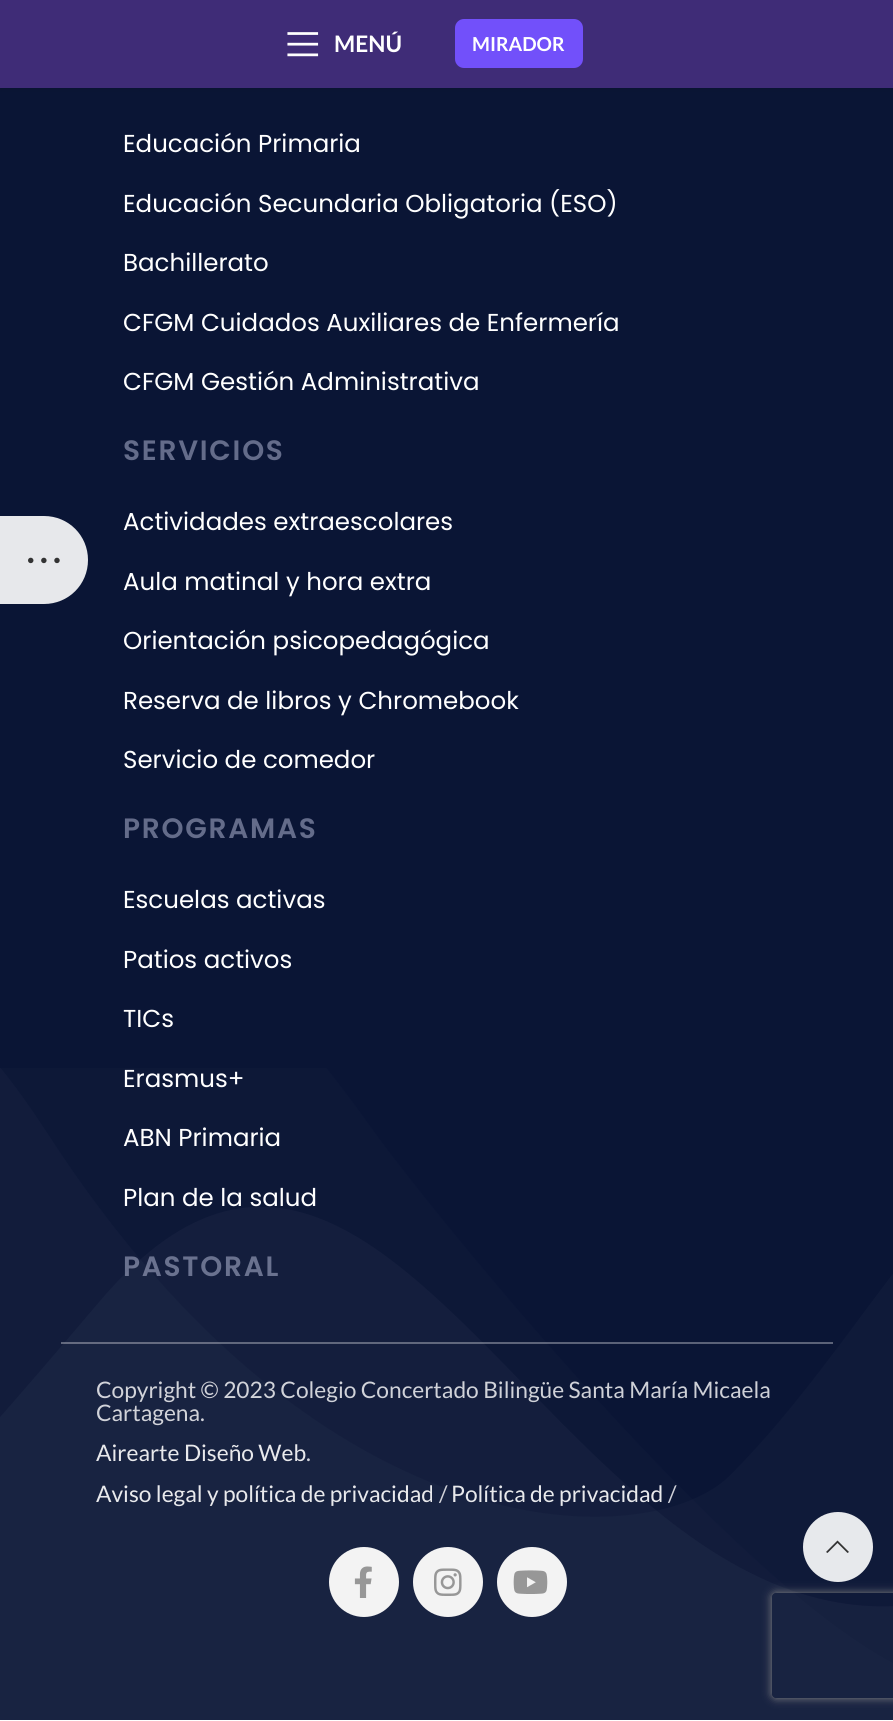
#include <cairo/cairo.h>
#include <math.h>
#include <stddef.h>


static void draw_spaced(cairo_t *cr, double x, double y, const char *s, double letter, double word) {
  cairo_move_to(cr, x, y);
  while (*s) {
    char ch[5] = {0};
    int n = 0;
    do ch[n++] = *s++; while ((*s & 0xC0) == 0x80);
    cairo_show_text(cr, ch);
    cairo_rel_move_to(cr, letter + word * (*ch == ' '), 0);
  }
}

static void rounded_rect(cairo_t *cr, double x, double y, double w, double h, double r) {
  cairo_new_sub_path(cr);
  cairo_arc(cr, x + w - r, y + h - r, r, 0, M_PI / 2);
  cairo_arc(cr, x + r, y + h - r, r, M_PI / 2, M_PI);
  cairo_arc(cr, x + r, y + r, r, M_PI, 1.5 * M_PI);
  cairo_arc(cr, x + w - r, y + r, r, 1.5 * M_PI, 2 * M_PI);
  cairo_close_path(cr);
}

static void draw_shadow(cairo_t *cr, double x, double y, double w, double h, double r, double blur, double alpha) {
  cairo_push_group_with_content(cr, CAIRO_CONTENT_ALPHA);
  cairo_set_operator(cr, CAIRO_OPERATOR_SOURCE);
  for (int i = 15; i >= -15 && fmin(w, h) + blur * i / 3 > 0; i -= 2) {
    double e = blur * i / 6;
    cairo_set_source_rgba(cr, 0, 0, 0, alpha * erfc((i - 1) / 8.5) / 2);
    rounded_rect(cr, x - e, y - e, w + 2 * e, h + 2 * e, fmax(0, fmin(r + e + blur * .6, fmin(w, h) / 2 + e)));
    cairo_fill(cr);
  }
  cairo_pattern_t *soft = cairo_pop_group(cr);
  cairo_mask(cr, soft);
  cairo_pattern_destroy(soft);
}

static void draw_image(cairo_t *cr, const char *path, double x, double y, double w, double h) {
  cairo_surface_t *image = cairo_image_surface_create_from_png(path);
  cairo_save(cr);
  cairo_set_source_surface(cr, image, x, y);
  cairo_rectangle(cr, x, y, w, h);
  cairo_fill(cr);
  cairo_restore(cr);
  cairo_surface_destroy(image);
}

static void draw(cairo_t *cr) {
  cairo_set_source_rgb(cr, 1, 1, 1);
  cairo_paint(cr);
  cairo_set_source_rgb(cr, 10 / 255.0, 21 / 255.0, 53 / 255.0);
  cairo_rectangle(cr, 0, 88, 893, 1632);
  cairo_fill(cr);
  cairo_set_source_rgba(cr, 1, 1, 1, 0.9);
  cairo_new_path(cr);
  cairo_move_to(cr, 0, 516);
  cairo_line_to(cr, 44, 516);
  cairo_curve_to(cr, 68.5, 516, 88, 535.5, 88, 560);
  cairo_curve_to(cr, 88, 584.5, 68.5, 604, 44, 604);
  cairo_line_to(cr, 0, 604);
  cairo_close_path(cr);
  cairo_fill(cr);
  draw_image(cr, "images/1.png", 28, 557, 32, 7);
  cairo_set_source_rgb(cr, 0, 0, 0);
  draw_shadow(cr, 0, 2, 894, 87, 0, 2.5, 0.1);
  cairo_set_source_rgb(cr, 63 / 255.0, 44 / 255.0, 119 / 255.0);
  cairo_rectangle(cr, 0, 0, 893, 88);
  cairo_fill(cr);
  draw_image(cr, "images/2.png", 287, 32, 32, 25);
  cairo_set_source_rgb(cr, 114 / 255.0, 80 / 255.0, 250 / 255.0);
  rounded_rect(cr, 455, 19, 128, 49, 9);
  cairo_fill(cr);
  cairo_set_source_rgb(cr, 91 / 255.0, 98 / 255.0, 120 / 255.0);
  cairo_rectangle(cr, 61, 1342, 772, 2);
  cairo_fill(cr);
  cairo_set_source_rgb(cr, 242 / 255.0, 242 / 255.0, 242 / 255.0);
  cairo_arc(cr, 364, 1582, 35, 0, 2 * M_PI);
  cairo_fill(cr);
  draw_image(cr, "images/3.png", 354, 1566, 18, 32);
  cairo_arc(cr, 448, 1582, 35, 0, 2 * M_PI);
  cairo_fill(cr);
  draw_image(cr, "images/4.png", 434, 1568, 28, 28);
  cairo_arc(cr, 532, 1582, 35, 0, 2 * M_PI);
  cairo_fill(cr);
  draw_image(cr, "images/5.png", 513, 1570, 35, 24);
  cairo_save(cr);
  cairo_set_fill_rule(cr, CAIRO_FILL_RULE_EVEN_ODD);
  cairo_new_path(cr);
  cairo_move_to(cr, 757, 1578);
  cairo_line_to(cr, 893, 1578);
  cairo_line_to(cr, 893, 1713);
  cairo_line_to(cr, 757, 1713);
  cairo_close_path(cr);
  cairo_move_to(cr, 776, 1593);
  cairo_line_to(cr, 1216, 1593);
  cairo_curve_to(cr, 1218, 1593, 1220, 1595, 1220, 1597);
  cairo_line_to(cr, 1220, 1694);
  cairo_curve_to(cr, 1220, 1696, 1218, 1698, 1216, 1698);
  cairo_line_to(cr, 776, 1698);
  cairo_curve_to(cr, 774, 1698, 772, 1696, 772, 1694);
  cairo_line_to(cr, 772, 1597);
  cairo_curve_to(cr, 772, 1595, 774, 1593, 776, 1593);
  cairo_close_path(cr);
  cairo_clip(cr);
  cairo_set_source_rgb(cr, 128 / 255.0, 128 / 255.0, 128 / 255.0);
  draw_shadow(cr, 772, 1593, 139, 105, 4, 4.5, 1);
  cairo_restore(cr);
  cairo_select_font_face(cr, "Lato", CAIRO_FONT_SLANT_NORMAL, CAIRO_FONT_WEIGHT_BOLD);
  cairo_set_font_size(cr, 22.75);
  cairo_set_source_rgb(cr, 1, 1, 1);
  cairo_move_to(cr, 334, 52);
  cairo_show_text(cr, "MENÚ");
  cairo_set_font_size(cr, 19.25);
  cairo_move_to(cr, 472, 51);
  cairo_show_text(cr, "MIRADOR");
  cairo_select_font_face(cr, "Poppins", CAIRO_FONT_SLANT_NORMAL, CAIRO_FONT_WEIGHT_NORMAL);
  cairo_set_font_size(cr, 24.5);
  cairo_move_to(cr, 123, 152);
  cairo_show_text(cr, "Educación Primaria");
  cairo_move_to(cr, 123, 212);
  cairo_show_text(cr, "Educación Secundaria Obligatoria (ESO)");
  cairo_move_to(cr, 123, 271);
  cairo_show_text(cr, "Bachillerato");
  cairo_move_to(cr, 123, 331);
  cairo_show_text(cr, "CFGM Cuidados Auxiliares de Enfermería");
  cairo_move_to(cr, 123, 390);
  cairo_show_text(cr, "CFGM Gestión Administrativa");
  cairo_select_font_face(cr, "Poppins SemiBold", CAIRO_FONT_SLANT_NORMAL, CAIRO_FONT_WEIGHT_NORMAL);
  cairo_set_font_size(cr, 28);
  cairo_set_source_rgb(cr, 100 / 255.0, 108 / 255.0, 138 / 255.0);
  draw_spaced(cr, 123, 460, "SERVICIOS", 1.75, 0);
  cairo_select_font_face(cr, "Poppins", CAIRO_FONT_SLANT_NORMAL, CAIRO_FONT_WEIGHT_NORMAL);
  cairo_set_font_size(cr, 24.5);
  cairo_set_source_rgb(cr, 1, 1, 1);
  cairo_move_to(cr, 123, 530);
  cairo_show_text(cr, "Actividades extraescolares");
  cairo_move_to(cr, 123, 590);
  cairo_show_text(cr, "Aula matinal y hora extra");
  cairo_move_to(cr, 123, 649);
  cairo_show_text(cr, "Orientación psicopedagógica");
  cairo_move_to(cr, 123, 709);
  cairo_show_text(cr, "Reserva de libros y Chromebook");
  cairo_move_to(cr, 123, 768);
  cairo_show_text(cr, "Servicio de comedor");
  cairo_select_font_face(cr, "Poppins SemiBold", CAIRO_FONT_SLANT_NORMAL, CAIRO_FONT_WEIGHT_NORMAL);
  cairo_set_font_size(cr, 28);
  cairo_set_source_rgb(cr, 100 / 255.0, 108 / 255.0, 138 / 255.0);
  draw_spaced(cr, 123, 838, "PROGRAMAS", 1.75, 0);
  cairo_select_font_face(cr, "Poppins", CAIRO_FONT_SLANT_NORMAL, CAIRO_FONT_WEIGHT_NORMAL);
  cairo_set_font_size(cr, 24.5);
  cairo_set_source_rgb(cr, 1, 1, 1);
  cairo_move_to(cr, 123, 908);
  cairo_show_text(cr, "Escuelas activas");
  cairo_move_to(cr, 123, 968);
  cairo_show_text(cr, "Patios activos");
  cairo_move_to(cr, 123, 1027);
  cairo_show_text(cr, "TICs");
  cairo_move_to(cr, 123, 1087);
  cairo_show_text(cr, "Erasmus+");
  cairo_move_to(cr, 123, 1146);
  cairo_show_text(cr, "ABN Primaria");
  cairo_move_to(cr, 123, 1206);
  cairo_show_text(cr, "Plan de la salud");
  cairo_select_font_face(cr, "Poppins SemiBold", CAIRO_FONT_SLANT_NORMAL, CAIRO_FONT_WEIGHT_NORMAL);
  cairo_set_font_size(cr, 28);
  cairo_set_source_rgb(cr, 100 / 255.0, 108 / 255.0, 138 / 255.0);
  draw_spaced(cr, 123, 1276, "PASTORAL", 1.75, 0);
  cairo_select_font_face(cr, "Lato", CAIRO_FONT_SLANT_NORMAL, CAIRO_FONT_WEIGHT_NORMAL);
  cairo_set_font_size(cr, 22.75);
  cairo_set_source_rgb(cr, 206 / 255.0, 208 / 255.0, 215 / 255.0);
  cairo_move_to(cr, 96, 1398);
  cairo_show_text(cr, "Copyright © 2023 Colegio Concertado Bilingüe Santa María Micaela");
  cairo_move_to(cr, 96, 1421);
  cairo_show_text(cr, "Cartagena.");
  cairo_set_source_rgb(cr, 231 / 255.0, 232 / 255.0, 235 / 255.0);
  cairo_move_to(cr, 96, 1461);
  cairo_show_text(cr, "Airearte Diseño Web");
  cairo_set_source_rgb(cr, 206 / 255.0, 208 / 255.0, 215 / 255.0);
  cairo_move_to(cr, 306, 1461);
  cairo_show_text(cr, ".");
  cairo_set_source_rgb(cr, 231 / 255.0, 232 / 255.0, 235 / 255.0);
  cairo_move_to(cr, 96, 1502);
  cairo_show_text(cr, "Aviso legal y política de privacidad");
  cairo_set_source_rgb(cr, 206 / 255.0, 208 / 255.0, 215 / 255.0);
  cairo_move_to(cr, 439, 1502);
  cairo_show_text(cr, "/");
  cairo_set_source_rgb(cr, 231 / 255.0, 232 / 255.0, 235 / 255.0);
  cairo_move_to(cr, 451, 1502);
  cairo_show_text(cr, "Política de privacidad");
  cairo_set_source_rgb(cr, 206 / 255.0, 208 / 255.0, 215 / 255.0);
  cairo_move_to(cr, 668, 1502);
  cairo_show_text(cr, "/");
  draw_image(cr, "images/6.png", 0, 1068, 893, 652);
  cairo_set_source_rgba(cr, 1, 1, 1, 0.9);
  cairo_arc(cr, 838, 1547, 35, 0, 2 * M_PI);
  cairo_fill(cr);
  cairo_set_source_rgb(cr, 51 / 255.0, 51 / 255.0, 51 / 255.0);
  cairo_new_path(cr);
  cairo_move_to(cr, 847.5, 1553);
  cairo_line_to(cr, 849, 1552);
  cairo_line_to(cr, 837.5, 1540.5);
  cairo_line_to(cr, 826, 1552);
  cairo_line_to(cr, 827.5, 1553);
  cairo_line_to(cr, 837.5, 1543);
  cairo_close_path(cr);
  cairo_fill(cr);
}

int main(void) {
  cairo_surface_t *surface = cairo_image_surface_create(CAIRO_FORMAT_RGB24, 893, 1721);
  cairo_t *cr = cairo_create(surface);
  cairo_font_options_t *options = cairo_font_options_create();
  cairo_font_options_set_hint_metrics(options, CAIRO_HINT_METRICS_OFF);
  cairo_font_options_set_hint_style(options, CAIRO_HINT_STYLE_NONE);
  cairo_set_font_options(cr, options);
  cairo_set_miter_limit(cr, 4);
  draw(cr);
  cairo_surface_write_to_png(surface, "out.png");
  cairo_font_options_destroy(options);
  cairo_destroy(cr);
  cairo_surface_destroy(surface);
  return 0;
}
